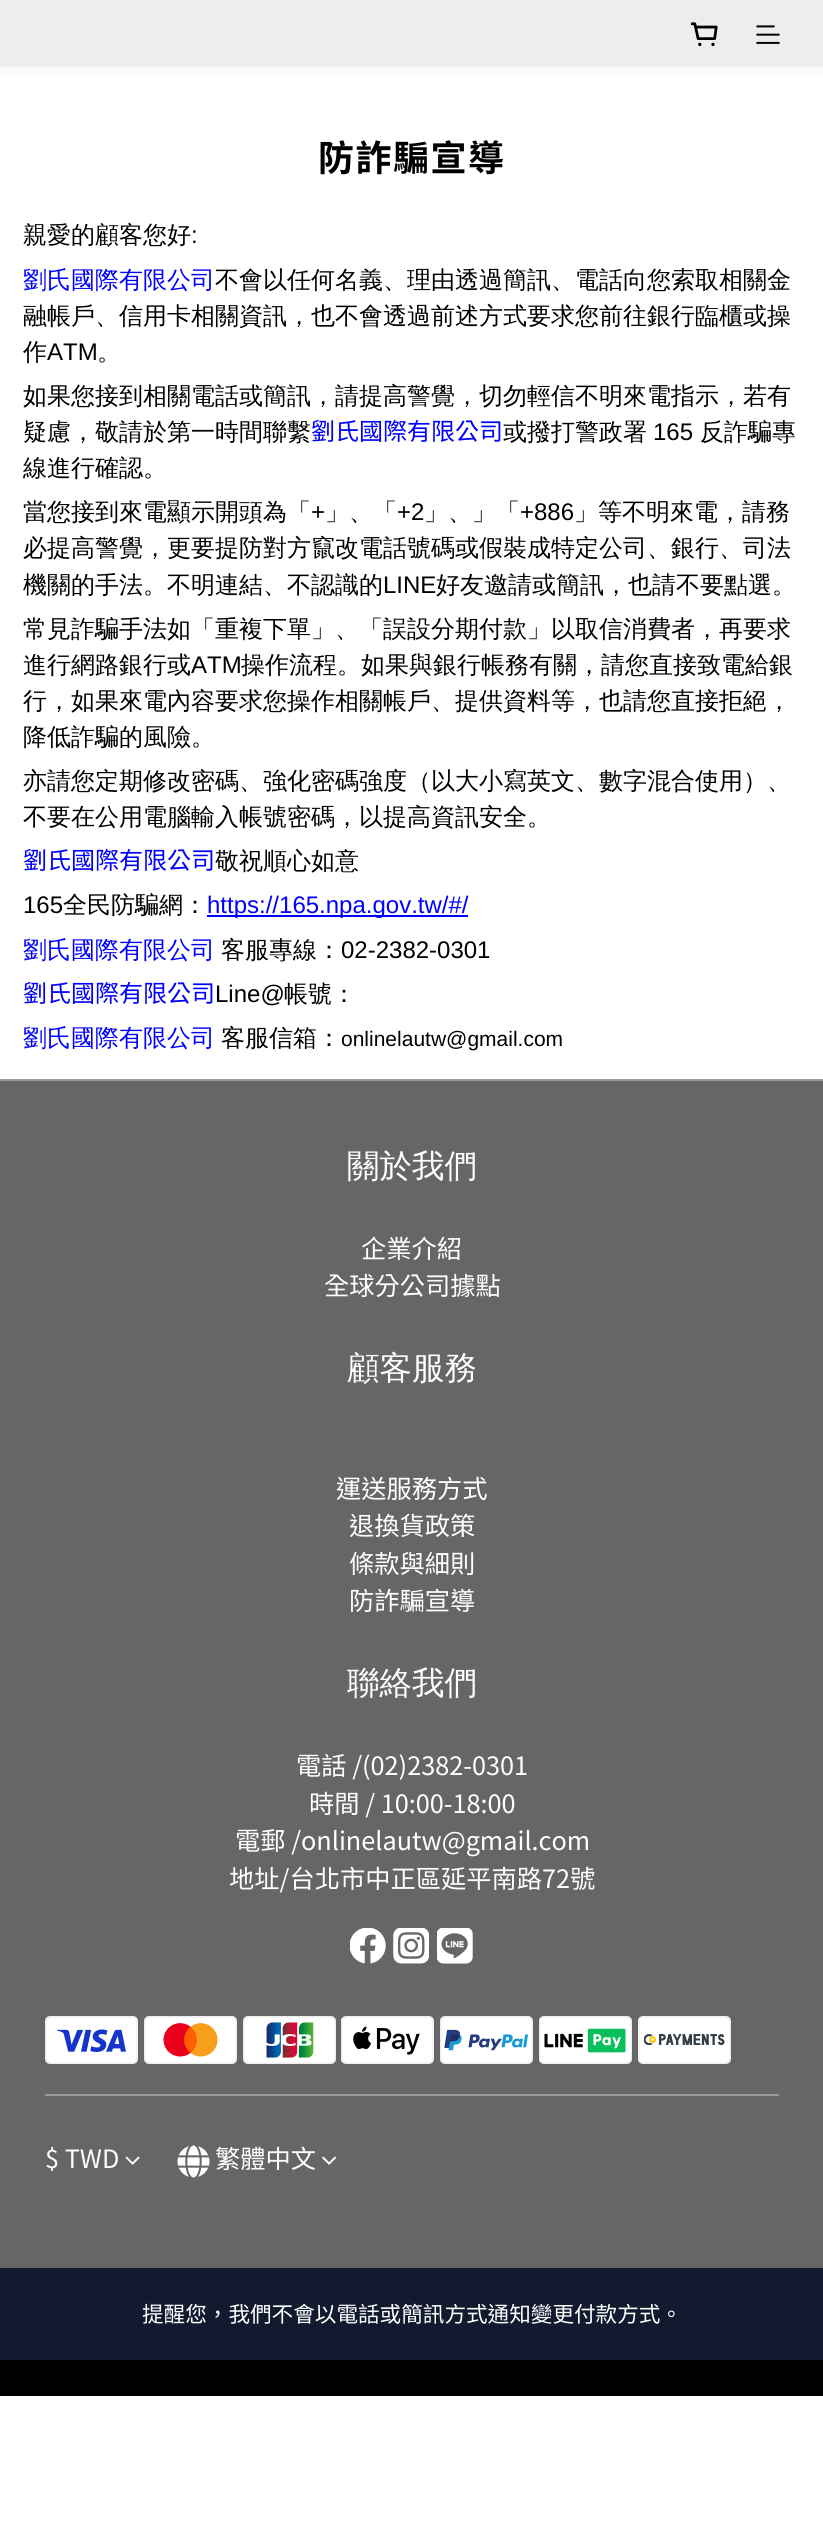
#include <cairo/cairo.h>
#include <math.h>
#include <stddef.h>


static void draw_spaced(cairo_t *cr, double x, double y, const char *s, double letter, double word) {
  cairo_move_to(cr, x, y);
  while (*s) {
    char ch[5] = {0};
    int n = 0;
    do ch[n++] = *s++; while ((*s & 0xC0) == 0x80);
    cairo_show_text(cr, ch);
    cairo_rel_move_to(cr, letter + word * (*ch == ' '), 0);
  }
}

static void rounded_rect(cairo_t *cr, double x, double y, double w, double h, double r) {
  cairo_new_sub_path(cr);
  cairo_arc(cr, x + w - r, y + h - r, r, 0, M_PI / 2);
  cairo_arc(cr, x + r, y + h - r, r, M_PI / 2, M_PI);
  cairo_arc(cr, x + r, y + r, r, M_PI, 1.5 * M_PI);
  cairo_arc(cr, x + w - r, y + r, r, 1.5 * M_PI, 2 * M_PI);
  cairo_close_path(cr);
}

static void draw_shadow(cairo_t *cr, double x, double y, double w, double h, double r, double blur, double alpha) {
  cairo_push_group_with_content(cr, CAIRO_CONTENT_ALPHA);
  cairo_set_operator(cr, CAIRO_OPERATOR_SOURCE);
  for (int i = 15; i >= -15 && fmin(w, h) + blur * i / 3 > 0; i -= 2) {
    double e = blur * i / 6;
    cairo_set_source_rgba(cr, 0, 0, 0, alpha * erfc((i - 1) / 8.5) / 2);
    rounded_rect(cr, x - e, y - e, w + 2 * e, h + 2 * e, fmax(0, fmin(r + e + blur * .6, fmin(w, h) / 2 + e)));
    cairo_fill(cr);
  }
  cairo_pattern_t *soft = cairo_pop_group(cr);
  cairo_mask(cr, soft);
  cairo_pattern_destroy(soft);
}

static void draw_image(cairo_t *cr, const char *path, double x, double y, double w, double h) {
  cairo_surface_t *image = cairo_image_surface_create_from_png(path);
  cairo_save(cr);
  cairo_set_source_surface(cr, image, x, y);
  cairo_rectangle(cr, x, y, w, h);
  cairo_fill(cr);
  cairo_restore(cr);
  cairo_surface_destroy(image);
}

static void draw(cairo_t *cr) {
  cairo_set_source_rgb(cr, 1, 1, 1);
  cairo_paint(cr);
  cairo_set_source_rgb(cr, 0, 0, 0);
  draw_shadow(cr, 0, 3, 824, 66, 0, 4.5, 0.06);
  cairo_set_source_rgb(cr, 237 / 255.0, 237 / 255.0, 237 / 255.0);
  cairo_rectangle(cr, 0, 0, 823, 66);
  cairo_fill(cr);
  draw_image(cr, "images/1.png", 690, 22, 28, 25);
  draw_image(cr, "images/2.png", 756, 25, 24, 19);
  cairo_set_source_rgb(cr, 0, 0, 1);
  cairo_rectangle(cr, 207, 915, 261, 2);
  cairo_fill(cr);
  cairo_set_source_rgb(cr, 102 / 255.0, 102 / 255.0, 102 / 255.0);
  cairo_rectangle(cr, 0, 1081, 823, 1187);
  cairo_fill(cr);
  cairo_set_source_rgb(cr, 153 / 255.0, 153 / 255.0, 153 / 255.0);
  cairo_rectangle(cr, 0, 1079, 823, 2);
  cairo_fill(cr);
  draw_image(cr, "images/3.png", 350, 1928, 36, 36);
  draw_image(cr, "images/4.png", 393, 1928, 36, 36);
  draw_image(cr, "images/5.png", 437, 1928, 36, 36);
  draw_image(cr, "images/6.png", 45, 2016, 93, 48);
  draw_image(cr, "images/7.png", 144, 2016, 93, 48);
  draw_image(cr, "images/8.png", 243, 2016, 93, 48);
  draw_image(cr, "images/9.png", 341, 2016, 93, 48);
  draw_image(cr, "images/10.png", 440, 2016, 93, 48);
  draw_image(cr, "images/11.png", 539, 2016, 93, 48);
  draw_image(cr, "images/12.png", 638, 2016, 93, 48);
  cairo_rectangle(cr, 45, 2094, 734, 2);
  cairo_fill(cr);
  draw_image(cr, "images/13.png", 125, 2156, 15, 9);
  draw_image(cr, "images/14.png", 177, 2145, 33, 33);
  draw_image(cr, "images/15.png", 322, 2156, 15, 9);
  cairo_set_source_rgb(cr, 18 / 255.0, 26 / 255.0, 47 / 255.0);
  cairo_rectangle(cr, 0, 2268, 823, 92);
  cairo_fill(cr);
  cairo_set_source_rgb(cr, 0, 0, 0);
  cairo_rectangle(cr, 0, 2360, 823, 36);
  cairo_fill(cr);
  cairo_select_font_face(cr, "Noto Sans TC", CAIRO_FONT_SLANT_NORMAL, CAIRO_FONT_WEIGHT_BOLD);
  cairo_set_font_size(cr, 36);
  draw_spaced(cr, 318, 171, "防詐騙宣導", 1.5, 0);
  cairo_select_font_face(cr, "WenQuanYi Zen Hei Medium", CAIRO_FONT_SLANT_NORMAL, CAIRO_FONT_WEIGHT_NORMAL);
  cairo_set_font_size(cr, 24);
  cairo_move_to(cr, 23, 243);
  cairo_show_text(cr, "親愛的顧客您好");
  cairo_select_font_face(cr, "Liberation Sans", CAIRO_FONT_SLANT_NORMAL, CAIRO_FONT_WEIGHT_NORMAL);
  cairo_move_to(cr, 191, 243);
  cairo_show_text(cr, ":");
  cairo_select_font_face(cr, "WenQuanYi Zen Hei Medium", CAIRO_FONT_SLANT_NORMAL, CAIRO_FONT_WEIGHT_NORMAL);
  cairo_set_source_rgb(cr, 0, 0, 1);
  cairo_move_to(cr, 23, 288);
  cairo_show_text(cr, "劉氏國際有限公司");
  cairo_set_source_rgb(cr, 0, 0, 0);
  cairo_move_to(cr, 215, 288);
  cairo_show_text(cr, "不會以任何名義、理由透過簡訊、電話向您索取相關金");
  cairo_move_to(cr, 23, 324);
  cairo_show_text(cr, "融帳戶、信用卡相關資訊，也不會透過前述方式要求您前往銀行臨櫃或操");
  cairo_move_to(cr, 23, 360);
  cairo_show_text(cr, "作");
  cairo_select_font_face(cr, "Liberation Sans", CAIRO_FONT_SLANT_NORMAL, CAIRO_FONT_WEIGHT_NORMAL);
  cairo_move_to(cr, 47, 360);
  cairo_show_text(cr, "ATM");
  cairo_select_font_face(cr, "WenQuanYi Zen Hei Medium", CAIRO_FONT_SLANT_NORMAL, CAIRO_FONT_WEIGHT_NORMAL);
  cairo_move_to(cr, 97, 360);
  cairo_show_text(cr, "。");
  cairo_move_to(cr, 23, 404);
  cairo_show_text(cr, "如果您接到相關電話或簡訊，請提高警覺，切勿輕信不明來電指示，若有");
  cairo_move_to(cr, 23, 440);
  cairo_show_text(cr, "疑慮，敬請於第一時間聯繫");
  cairo_select_font_face(cr, "Noto Sans TC", CAIRO_FONT_SLANT_NORMAL, CAIRO_FONT_WEIGHT_NORMAL);
  cairo_set_source_rgb(cr, 0, 0, 1);
  cairo_move_to(cr, 311, 440);
  cairo_show_text(cr, "劉氏國際有限公司");
  cairo_select_font_face(cr, "WenQuanYi Zen Hei Medium", CAIRO_FONT_SLANT_NORMAL, CAIRO_FONT_WEIGHT_NORMAL);
  cairo_set_source_rgb(cr, 0, 0, 0);
  cairo_move_to(cr, 503, 440);
  cairo_show_text(cr, "或撥打警政署");
  cairo_select_font_face(cr, "Liberation Sans", CAIRO_FONT_SLANT_NORMAL, CAIRO_FONT_WEIGHT_NORMAL);
  cairo_move_to(cr, 653, 440);
  cairo_show_text(cr, "165");
  cairo_select_font_face(cr, "WenQuanYi Zen Hei Medium", CAIRO_FONT_SLANT_NORMAL, CAIRO_FONT_WEIGHT_NORMAL);
  cairo_move_to(cr, 700, 440);
  cairo_show_text(cr, "反詐騙專");
  cairo_move_to(cr, 23, 476);
  cairo_show_text(cr, "線進行確認。");
  cairo_move_to(cr, 23, 520);
  cairo_show_text(cr, "當您接到來電顯示開頭為「");
  cairo_select_font_face(cr, "Liberation Sans", CAIRO_FONT_SLANT_NORMAL, CAIRO_FONT_WEIGHT_NORMAL);
  cairo_move_to(cr, 311, 520);
  cairo_show_text(cr, "+");
  cairo_select_font_face(cr, "WenQuanYi Zen Hei Medium", CAIRO_FONT_SLANT_NORMAL, CAIRO_FONT_WEIGHT_NORMAL);
  cairo_move_to(cr, 325, 520);
  cairo_show_text(cr, "」、「");
  cairo_select_font_face(cr, "Liberation Sans", CAIRO_FONT_SLANT_NORMAL, CAIRO_FONT_WEIGHT_NORMAL);
  cairo_move_to(cr, 397, 520);
  cairo_show_text(cr, "+2");
  cairo_select_font_face(cr, "WenQuanYi Zen Hei Medium", CAIRO_FONT_SLANT_NORMAL, CAIRO_FONT_WEIGHT_NORMAL);
  cairo_move_to(cr, 424, 520);
  cairo_show_text(cr, "」、」「");
  cairo_select_font_face(cr, "Liberation Sans", CAIRO_FONT_SLANT_NORMAL, CAIRO_FONT_WEIGHT_NORMAL);
  cairo_move_to(cr, 520, 520);
  cairo_show_text(cr, "+886");
  cairo_select_font_face(cr, "WenQuanYi Zen Hei Medium", CAIRO_FONT_SLANT_NORMAL, CAIRO_FONT_WEIGHT_NORMAL);
  cairo_move_to(cr, 574, 520);
  cairo_show_text(cr, "」等不明來電，請務");
  cairo_move_to(cr, 23, 556);
  cairo_show_text(cr, "必提高警覺，更要提防對方竄改電話號碼或假裝成特定公司、銀行、司法");
  cairo_move_to(cr, 23, 593);
  cairo_show_text(cr, "機關的手法。不明連結、不認識的");
  cairo_select_font_face(cr, "Liberation Sans", CAIRO_FONT_SLANT_NORMAL, CAIRO_FONT_WEIGHT_NORMAL);
  cairo_move_to(cr, 383, 593);
  cairo_show_text(cr, "LINE");
  cairo_select_font_face(cr, "WenQuanYi Zen Hei Medium", CAIRO_FONT_SLANT_NORMAL, CAIRO_FONT_WEIGHT_NORMAL);
  cairo_move_to(cr, 436, 593);
  cairo_show_text(cr, "好友邀請或簡訊，也請不要點選。");
  cairo_move_to(cr, 23, 637);
  cairo_show_text(cr, "常見詐騙手法如「重複下單」、「誤設分期付款」以取信消費者，再要求");
  cairo_move_to(cr, 23, 673);
  cairo_show_text(cr, "進行網路銀行或");
  cairo_select_font_face(cr, "Liberation Sans", CAIRO_FONT_SLANT_NORMAL, CAIRO_FONT_WEIGHT_NORMAL);
  cairo_move_to(cr, 191, 673);
  cairo_show_text(cr, "ATM");
  cairo_select_font_face(cr, "WenQuanYi Zen Hei Medium", CAIRO_FONT_SLANT_NORMAL, CAIRO_FONT_WEIGHT_NORMAL);
  cairo_move_to(cr, 241, 673);
  cairo_show_text(cr, "操作流程。如果與銀行帳務有關，請您直接致電給銀");
  cairo_move_to(cr, 23, 709);
  cairo_show_text(cr, "行，如果來電內容要求您操作相關帳戶、提供資料等，也請您直接拒絕，");
  cairo_move_to(cr, 23, 745);
  cairo_show_text(cr, "降低詐騙的風險。");
  cairo_move_to(cr, 23, 789);
  cairo_show_text(cr, "亦請您定期修改密碼、強化密碼強度（以大小寫英文、數字混合使用）、");
  cairo_move_to(cr, 23, 825);
  cairo_show_text(cr, "不要在公用電腦輸入帳號密碼，以提高資訊安全。");
  cairo_select_font_face(cr, "Noto Sans TC", CAIRO_FONT_SLANT_NORMAL, CAIRO_FONT_WEIGHT_NORMAL);
  cairo_set_source_rgb(cr, 0, 0, 1);
  cairo_move_to(cr, 23, 869);
  cairo_show_text(cr, "劉氏國際有限公司");
  cairo_select_font_face(cr, "WenQuanYi Zen Hei Medium", CAIRO_FONT_SLANT_NORMAL, CAIRO_FONT_WEIGHT_NORMAL);
  cairo_set_source_rgb(cr, 0, 0, 0);
  cairo_move_to(cr, 215, 869);
  cairo_show_text(cr, "敬祝順心如意");
  cairo_select_font_face(cr, "Liberation Sans", CAIRO_FONT_SLANT_NORMAL, CAIRO_FONT_WEIGHT_NORMAL);
  cairo_move_to(cr, 23, 913);
  cairo_show_text(cr, "165");
  cairo_select_font_face(cr, "WenQuanYi Zen Hei Medium", CAIRO_FONT_SLANT_NORMAL, CAIRO_FONT_WEIGHT_NORMAL);
  cairo_move_to(cr, 63, 913);
  cairo_show_text(cr, "全民防騙網：");
  cairo_select_font_face(cr, "Liberation Sans", CAIRO_FONT_SLANT_NORMAL, CAIRO_FONT_WEIGHT_NORMAL);
  cairo_set_source_rgb(cr, 0, 0, 1);
  cairo_move_to(cr, 207, 913);
  cairo_show_text(cr, "https://165.npa.gov.tw/#/");
  cairo_select_font_face(cr, "WenQuanYi Zen Hei Medium", CAIRO_FONT_SLANT_NORMAL, CAIRO_FONT_WEIGHT_NORMAL);
  cairo_move_to(cr, 23, 958);
  cairo_show_text(cr, "劉氏國際有限公司");
  cairo_set_source_rgb(cr, 0, 0, 0);
  cairo_move_to(cr, 221, 958);
  cairo_show_text(cr, "客服專線：");
  cairo_select_font_face(cr, "Liberation Sans", CAIRO_FONT_SLANT_NORMAL, CAIRO_FONT_WEIGHT_NORMAL);
  cairo_move_to(cr, 341, 958);
  cairo_show_text(cr, "02-2382-0301");
  cairo_select_font_face(cr, "Noto Sans TC", CAIRO_FONT_SLANT_NORMAL, CAIRO_FONT_WEIGHT_NORMAL);
  cairo_set_source_rgb(cr, 0, 0, 1);
  cairo_move_to(cr, 23, 1002);
  cairo_show_text(cr, "劉氏國際有限公司");
  cairo_select_font_face(cr, "Liberation Sans", CAIRO_FONT_SLANT_NORMAL, CAIRO_FONT_WEIGHT_NORMAL);
  cairo_set_source_rgb(cr, 0, 0, 0);
  cairo_move_to(cr, 215, 1002);
  cairo_show_text(cr, "Line@");
  cairo_select_font_face(cr, "WenQuanYi Zen Hei Medium", CAIRO_FONT_SLANT_NORMAL, CAIRO_FONT_WEIGHT_NORMAL);
  cairo_move_to(cr, 284, 1002);
  cairo_show_text(cr, "帳號：");
  cairo_set_source_rgb(cr, 0, 0, 1);
  cairo_move_to(cr, 23, 1046);
  cairo_show_text(cr, "劉氏國際有限公司");
  cairo_set_source_rgb(cr, 0, 0, 0);
  cairo_move_to(cr, 221, 1046);
  cairo_show_text(cr, "客服信箱：");
  cairo_select_font_face(cr, "Liberation Sans", CAIRO_FONT_SLANT_NORMAL, CAIRO_FONT_WEIGHT_NORMAL);
  cairo_set_font_size(cr, 21);
  cairo_move_to(cr, 341, 1046);
  cairo_show_text(cr, "onlinelautw@gmail.com");
  cairo_select_font_face(cr, "WenQuanYi Zen Hei Medium", CAIRO_FONT_SLANT_NORMAL, CAIRO_FONT_WEIGHT_NORMAL);
  cairo_set_font_size(cr, 32.5);
  cairo_set_source_rgb(cr, 1, 1, 1);
  cairo_move_to(cr, 347, 1177);
  cairo_show_text(cr, "關於我們");
  cairo_select_font_face(cr, "Noto Sans TC", CAIRO_FONT_SLANT_NORMAL, CAIRO_FONT_WEIGHT_NORMAL);
  cairo_set_font_size(cr, 25.25);
  cairo_move_to(cr, 361, 1258);
  cairo_show_text(cr, "企業介紹");
  cairo_move_to(cr, 324, 1295);
  cairo_show_text(cr, "全球分公司據點");
  cairo_select_font_face(cr, "WenQuanYi Zen Hei Medium", CAIRO_FONT_SLANT_NORMAL, CAIRO_FONT_WEIGHT_NORMAL);
  cairo_set_font_size(cr, 32.5);
  cairo_move_to(cr, 347, 1379);
  cairo_show_text(cr, "顧客服務");
  cairo_select_font_face(cr, "Noto Sans TC", CAIRO_FONT_SLANT_NORMAL, CAIRO_FONT_WEIGHT_NORMAL);
  cairo_set_font_size(cr, 25.25);
  cairo_move_to(cr, 336, 1498);
  cairo_show_text(cr, "運送服務方式");
  cairo_move_to(cr, 349, 1535);
  cairo_show_text(cr, "退換貨政策");
  cairo_move_to(cr, 349, 1573);
  cairo_show_text(cr, "條款與細則");
  cairo_move_to(cr, 349, 1610);
  cairo_show_text(cr, "防詐騙宣導");
  cairo_select_font_face(cr, "WenQuanYi Zen Hei Medium", CAIRO_FONT_SLANT_NORMAL, CAIRO_FONT_WEIGHT_NORMAL);
  cairo_set_font_size(cr, 32.5);
  cairo_move_to(cr, 347, 1694);
  cairo_show_text(cr, "聯絡我們");
  cairo_select_font_face(cr, "Noto Sans TC", CAIRO_FONT_SLANT_NORMAL, CAIRO_FONT_WEIGHT_NORMAL);
  cairo_set_font_size(cr, 25.25);
  cairo_move_to(cr, 296, 1775);
  cairo_show_text(cr, "電話 /(02)2382-0301");
  cairo_move_to(cr, 309, 1813);
  cairo_show_text(cr, "時間 / 10:00-18:00");
  cairo_move_to(cr, 235, 1850);
  cairo_show_text(cr, "電郵 /onlinelautw@gmail.com");
  cairo_move_to(cr, 229, 1888);
  cairo_show_text(cr, "地址/台北市中正區延平南路72號");
  cairo_move_to(cr, 45, 2168);
  cairo_show_text(cr, "$ TWD");
  cairo_move_to(cr, 215, 2168);
  cairo_show_text(cr, "繁體中文");
  cairo_set_font_size(cr, 21.6);
  cairo_move_to(cr, 142, 2322);
  cairo_show_text(cr, "提醒您，我們不會以電話或簡訊方式通知變更付款方式。");
}

int main(void) {
  cairo_surface_t *surface = cairo_image_surface_create(CAIRO_FORMAT_RGB24, 823, 2525);
  cairo_t *cr = cairo_create(surface);
  cairo_font_options_t *options = cairo_font_options_create();
  cairo_font_options_set_hint_metrics(options, CAIRO_HINT_METRICS_OFF);
  cairo_font_options_set_hint_style(options, CAIRO_HINT_STYLE_NONE);
  cairo_set_font_options(cr, options);
  cairo_set_miter_limit(cr, 4);
  draw(cr);
  cairo_surface_write_to_png(surface, "out.png");
  cairo_font_options_destroy(options);
  cairo_destroy(cr);
  cairo_surface_destroy(surface);
  return 0;
}
